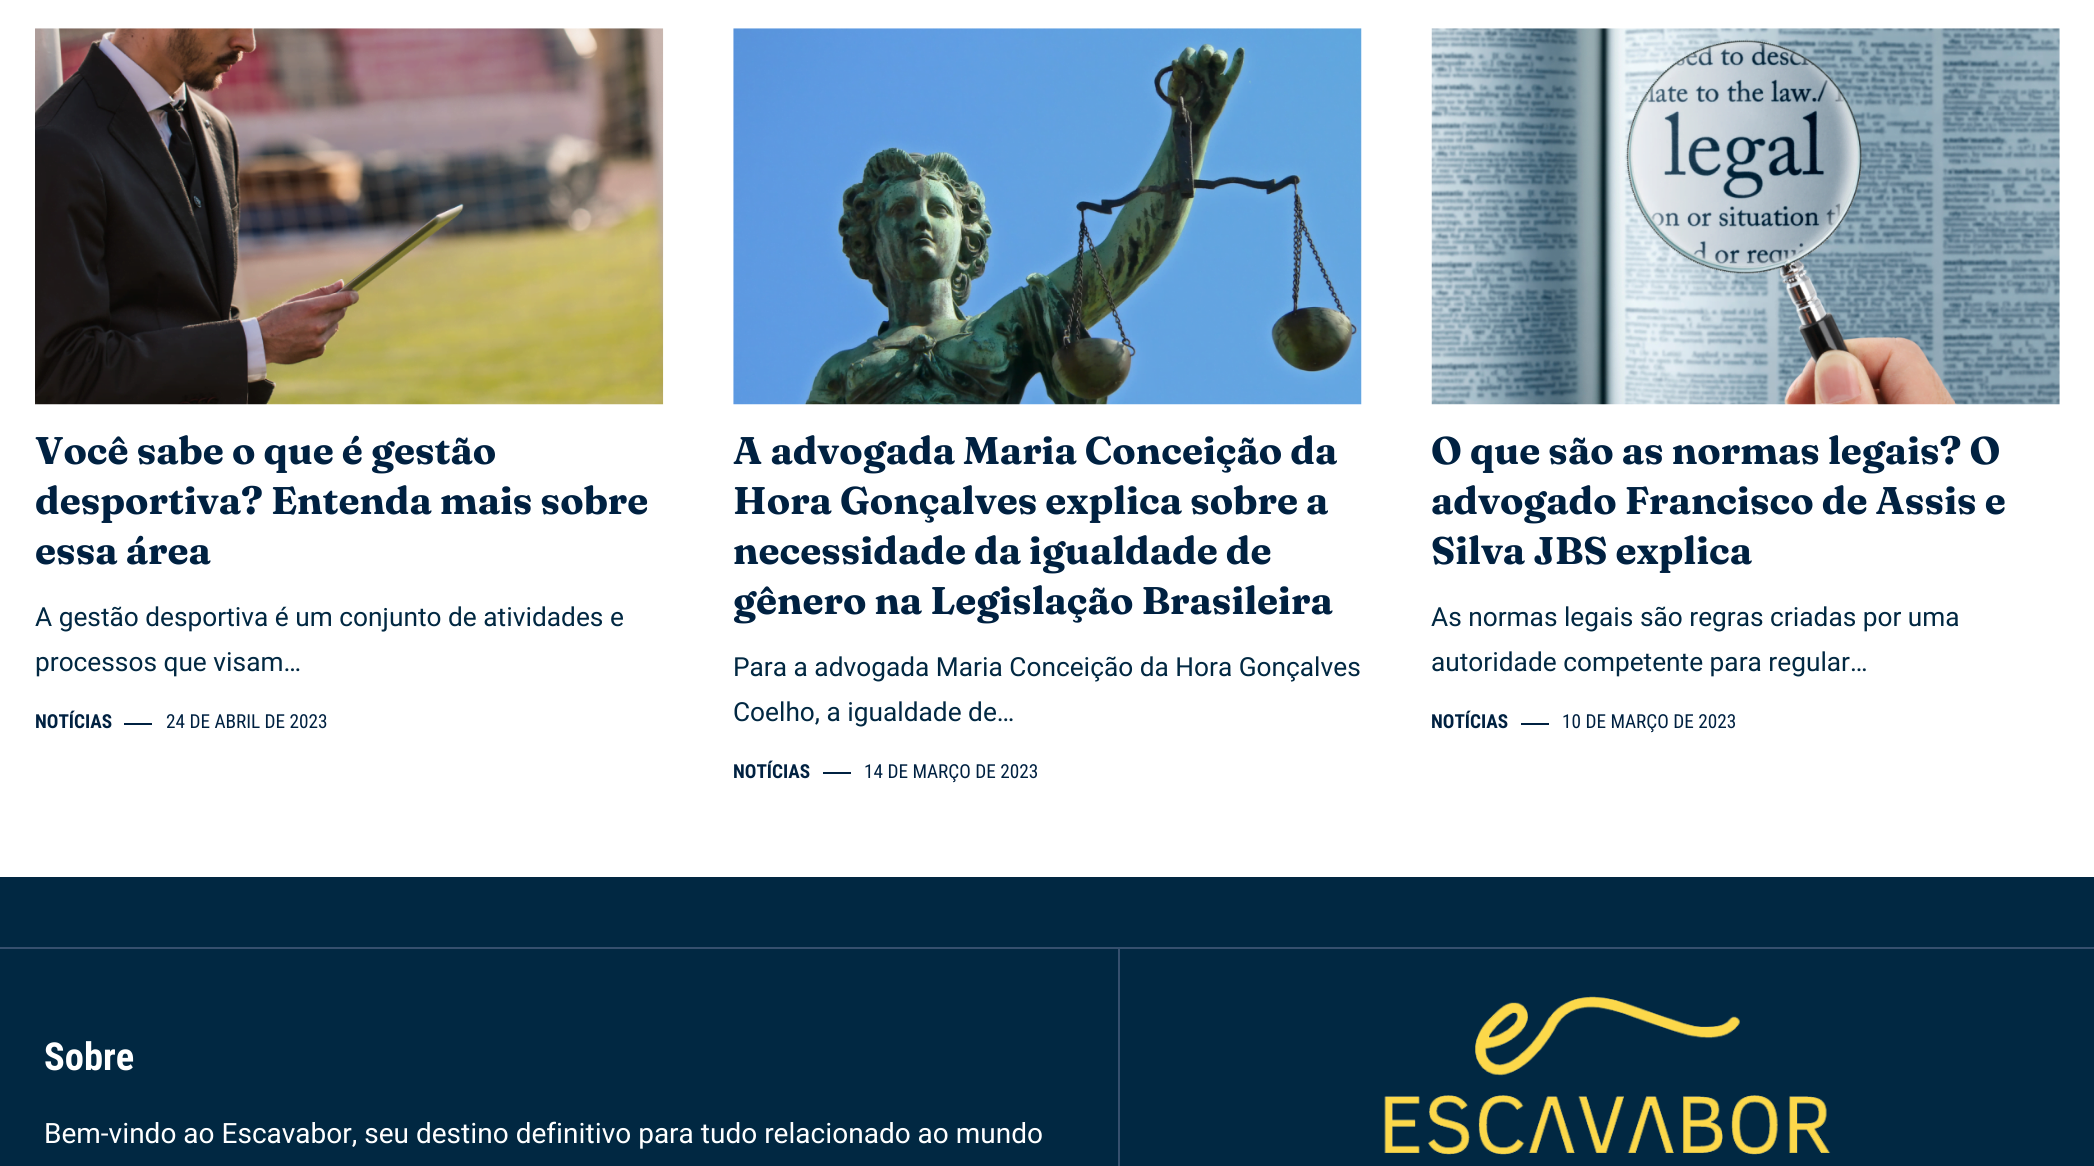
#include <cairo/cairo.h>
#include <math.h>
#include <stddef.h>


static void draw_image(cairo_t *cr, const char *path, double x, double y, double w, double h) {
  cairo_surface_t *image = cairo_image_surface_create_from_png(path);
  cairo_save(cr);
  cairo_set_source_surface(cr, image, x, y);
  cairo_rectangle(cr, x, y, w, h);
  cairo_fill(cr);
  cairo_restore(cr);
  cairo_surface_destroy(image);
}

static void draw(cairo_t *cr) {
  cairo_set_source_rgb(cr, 1, 1, 1);
  cairo_paint(cr);
  draw_image(cr, "images/1.png", 35, 28, 629, 377);
  cairo_set_source_rgb(cr, 0, 33 / 255.0, 65 / 255.0);
  cairo_rectangle(cr, 124, 723, 28, 2);
  cairo_fill(cr);
  draw_image(cr, "images/2.png", 733, 28, 629, 377);
  cairo_rectangle(cr, 823, 772, 28, 2);
  cairo_fill(cr);
  draw_image(cr, "images/3.png", 1431, 28, 629, 377);
  cairo_rectangle(cr, 1521, 723, 28, 2);
  cairo_fill(cr);
  cairo_set_source_rgb(cr, 1 / 255.0, 40 / 255.0, 66 / 255.0);
  cairo_rectangle(cr, 0, 877, 2094, 289);
  cairo_fill(cr);
  cairo_set_source_rgb(cr, 54 / 255.0, 80 / 255.0, 110 / 255.0);
  cairo_rectangle(cr, 0, 947, 2094, 2);
  cairo_fill(cr);
  cairo_rectangle(cr, 1118, 949, 2, 217);
  cairo_fill(cr);
  draw_image(cr, "images/4.png", 1384, 996, 447, 159);
  cairo_select_font_face(cr, "Fraunces", CAIRO_FONT_SLANT_NORMAL, CAIRO_FONT_WEIGHT_BOLD);
  cairo_set_font_size(cr, 38.5);
  cairo_set_source_rgb(cr, 0, 33 / 255.0, 65 / 255.0);
  cairo_move_to(cr, 35, 464);
  cairo_show_text(cr, "Você sabe o que é gestão");
  cairo_move_to(cr, 35, 514);
  cairo_show_text(cr, "desportiva? Entenda mais sobre");
  cairo_move_to(cr, 35, 564);
  cairo_show_text(cr, "essa área");
  cairo_select_font_face(cr, "Heebo", CAIRO_FONT_SLANT_NORMAL, CAIRO_FONT_WEIGHT_NORMAL);
  cairo_set_font_size(cr, 26.25);
  cairo_set_source_rgb(cr, 1 / 255.0, 40 / 255.0, 66 / 255.0);
  cairo_move_to(cr, 35, 626);
  cairo_show_text(cr, "A gestão desportiva é um conjunto de atividades e");
  cairo_move_to(cr, 35, 671);
  cairo_show_text(cr, "processos que visam…");
  cairo_select_font_face(cr, "Roboto Condensed", CAIRO_FONT_SLANT_NORMAL, CAIRO_FONT_WEIGHT_BOLD);
  cairo_set_font_size(cr, 19.25);
  cairo_set_source_rgb(cr, 0, 33 / 255.0, 65 / 255.0);
  cairo_move_to(cr, 35, 728);
  cairo_show_text(cr, "NOTÍCIAS");
  cairo_select_font_face(cr, "Roboto Condensed", CAIRO_FONT_SLANT_NORMAL, CAIRO_FONT_WEIGHT_NORMAL);
  cairo_move_to(cr, 166, 728);
  cairo_show_text(cr, "24 DE ABRIL DE 2023");
  cairo_select_font_face(cr, "Fraunces", CAIRO_FONT_SLANT_NORMAL, CAIRO_FONT_WEIGHT_BOLD);
  cairo_set_font_size(cr, 38.5);
  cairo_move_to(cr, 733, 464);
  cairo_show_text(cr, "A advogada Maria Conceição da");
  cairo_move_to(cr, 733, 514);
  cairo_show_text(cr, "Hora Gonçalves explica sobre a");
  cairo_move_to(cr, 733, 564);
  cairo_show_text(cr, "necessidade da igualdade de");
  cairo_move_to(cr, 733, 614);
  cairo_show_text(cr, "gênero na Legislação Brasileira");
  cairo_select_font_face(cr, "Heebo", CAIRO_FONT_SLANT_NORMAL, CAIRO_FONT_WEIGHT_NORMAL);
  cairo_set_font_size(cr, 26.25);
  cairo_set_source_rgb(cr, 1 / 255.0, 40 / 255.0, 66 / 255.0);
  cairo_move_to(cr, 733, 676);
  cairo_show_text(cr, "Para a advogada Maria Conceição da Hora Gonçalves");
  cairo_move_to(cr, 733, 721);
  cairo_show_text(cr, "Coelho, a igualdade de…");
  cairo_select_font_face(cr, "Roboto Condensed", CAIRO_FONT_SLANT_NORMAL, CAIRO_FONT_WEIGHT_BOLD);
  cairo_set_font_size(cr, 19.25);
  cairo_set_source_rgb(cr, 0, 33 / 255.0, 65 / 255.0);
  cairo_move_to(cr, 733, 778);
  cairo_show_text(cr, "NOTÍCIAS");
  cairo_select_font_face(cr, "Roboto Condensed", CAIRO_FONT_SLANT_NORMAL, CAIRO_FONT_WEIGHT_NORMAL);
  cairo_move_to(cr, 864, 778);
  cairo_show_text(cr, "14 DE MARÇO DE 2023");
  cairo_select_font_face(cr, "Fraunces", CAIRO_FONT_SLANT_NORMAL, CAIRO_FONT_WEIGHT_BOLD);
  cairo_set_font_size(cr, 38.5);
  cairo_move_to(cr, 1431, 464);
  cairo_show_text(cr, "O que são as normas legais? O");
  cairo_move_to(cr, 1431, 514);
  cairo_show_text(cr, "advogado Francisco de Assis e");
  cairo_move_to(cr, 1431, 564);
  cairo_show_text(cr, "Silva JBS explica");
  cairo_select_font_face(cr, "Heebo", CAIRO_FONT_SLANT_NORMAL, CAIRO_FONT_WEIGHT_NORMAL);
  cairo_set_font_size(cr, 26.25);
  cairo_set_source_rgb(cr, 1 / 255.0, 40 / 255.0, 66 / 255.0);
  cairo_move_to(cr, 1431, 626);
  cairo_show_text(cr, "As normas legais são regras criadas por uma");
  cairo_move_to(cr, 1431, 671);
  cairo_show_text(cr, "autoridade competente para regular…");
  cairo_select_font_face(cr, "Roboto Condensed", CAIRO_FONT_SLANT_NORMAL, CAIRO_FONT_WEIGHT_BOLD);
  cairo_set_font_size(cr, 19.25);
  cairo_set_source_rgb(cr, 0, 33 / 255.0, 65 / 255.0);
  cairo_move_to(cr, 1431, 728);
  cairo_show_text(cr, "NOTÍCIAS");
  cairo_select_font_face(cr, "Roboto Condensed", CAIRO_FONT_SLANT_NORMAL, CAIRO_FONT_WEIGHT_NORMAL);
  cairo_move_to(cr, 1562, 728);
  cairo_show_text(cr, "10 DE MARÇO DE 2023");
  cairo_select_font_face(cr, "Roboto Condensed", CAIRO_FONT_SLANT_NORMAL, CAIRO_FONT_WEIGHT_BOLD);
  cairo_set_font_size(cr, 38.5);
  cairo_set_source_rgb(cr, 1, 1, 1);
  cairo_move_to(cr, 44, 1070);
  cairo_show_text(cr, "Sobre");
  cairo_select_font_face(cr, "Heebo", CAIRO_FONT_SLANT_NORMAL, CAIRO_FONT_WEIGHT_NORMAL);
  cairo_set_font_size(cr, 28);
  cairo_move_to(cr, 44, 1143);
  cairo_show_text(cr, "Bem-vindo ao Escavabor, seu destino definitivo para tudo relacionado ao mundo");
}

int main(void) {
  cairo_surface_t *surface = cairo_image_surface_create(CAIRO_FORMAT_RGB24, 2094, 1166);
  cairo_t *cr = cairo_create(surface);
  cairo_font_options_t *options = cairo_font_options_create();
  cairo_font_options_set_hint_metrics(options, CAIRO_HINT_METRICS_OFF);
  cairo_font_options_set_hint_style(options, CAIRO_HINT_STYLE_NONE);
  cairo_set_font_options(cr, options);
  cairo_set_miter_limit(cr, 4);
  draw(cr);
  cairo_surface_write_to_png(surface, "out.png");
  cairo_font_options_destroy(options);
  cairo_destroy(cr);
  cairo_surface_destroy(surface);
  return 0;
}
